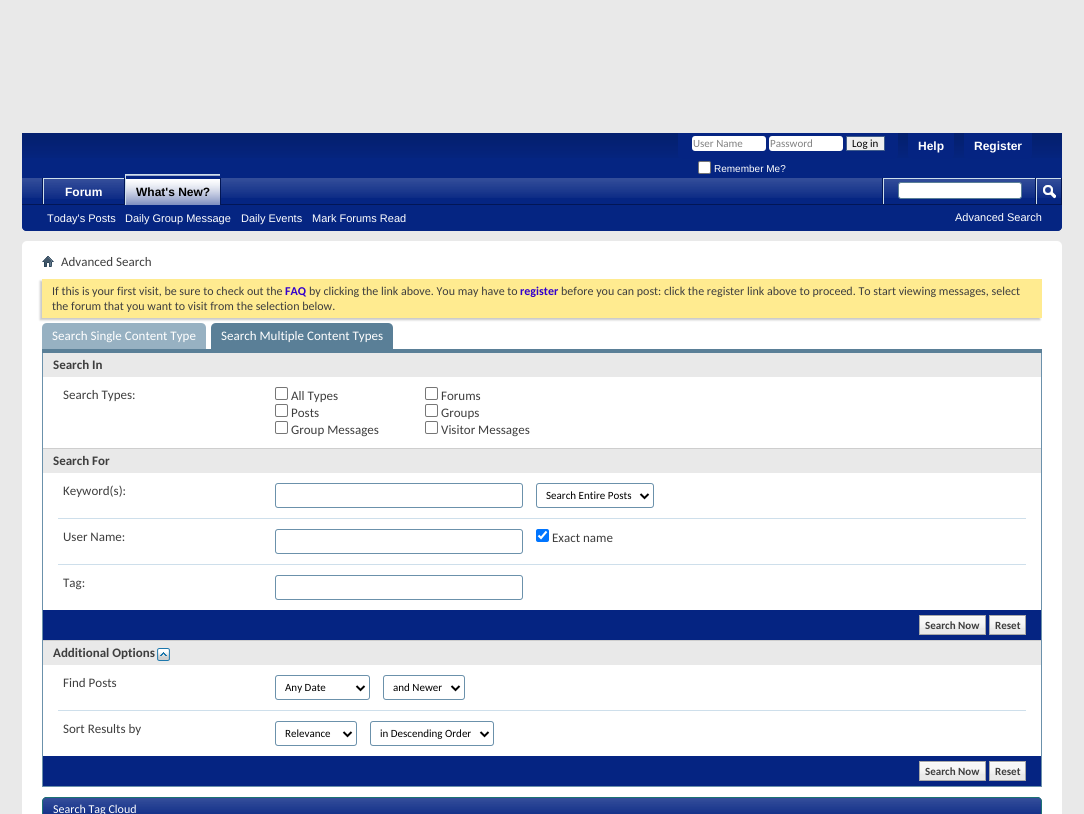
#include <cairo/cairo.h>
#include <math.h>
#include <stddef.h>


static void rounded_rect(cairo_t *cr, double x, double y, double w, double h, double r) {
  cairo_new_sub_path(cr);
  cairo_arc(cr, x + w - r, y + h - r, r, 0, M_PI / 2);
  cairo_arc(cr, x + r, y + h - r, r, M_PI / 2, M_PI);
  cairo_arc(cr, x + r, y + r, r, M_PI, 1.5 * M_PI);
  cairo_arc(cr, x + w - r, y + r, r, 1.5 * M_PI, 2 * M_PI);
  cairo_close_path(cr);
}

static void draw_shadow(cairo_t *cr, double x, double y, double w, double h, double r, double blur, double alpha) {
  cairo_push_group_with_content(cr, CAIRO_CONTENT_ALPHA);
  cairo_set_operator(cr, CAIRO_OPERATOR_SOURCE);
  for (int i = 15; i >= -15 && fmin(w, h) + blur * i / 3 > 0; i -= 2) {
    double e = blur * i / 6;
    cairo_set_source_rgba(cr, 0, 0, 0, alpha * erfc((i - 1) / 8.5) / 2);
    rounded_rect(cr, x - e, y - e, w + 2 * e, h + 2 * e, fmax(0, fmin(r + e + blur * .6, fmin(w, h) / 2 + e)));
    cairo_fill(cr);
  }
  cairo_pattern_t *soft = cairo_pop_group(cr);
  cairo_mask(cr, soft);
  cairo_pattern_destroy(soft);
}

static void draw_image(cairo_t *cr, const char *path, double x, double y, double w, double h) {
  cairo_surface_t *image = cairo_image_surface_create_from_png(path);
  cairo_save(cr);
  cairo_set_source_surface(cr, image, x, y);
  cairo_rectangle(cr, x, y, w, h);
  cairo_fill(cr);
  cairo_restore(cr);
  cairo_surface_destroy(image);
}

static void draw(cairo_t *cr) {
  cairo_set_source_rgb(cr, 233 / 255.0, 233 / 255.0, 233 / 255.0);
  cairo_paint(cr);
  cairo_set_source_rgb(cr, 5 / 255.0, 37 / 255.0, 130 / 255.0);
  cairo_new_path(cr);
  cairo_move_to(cr, 22, 133);
  cairo_line_to(cr, 1062, 133);
  cairo_line_to(cr, 1062, 226);
  cairo_curve_to(cr, 1062, 229, 1060, 231, 1057, 231);
  cairo_line_to(cr, 27, 231);
  cairo_curve_to(cr, 24, 231, 22, 229, 22, 226);
  cairo_close_path(cr);
  cairo_fill(cr);
  draw_image(cr, "images/1.png", 22, 133, 1040, 25);
  cairo_set_source_rgb(cr, 5 / 255.0, 36 / 255.0, 130 / 255.0);
  cairo_new_path(cr);
  cairo_move_to(cr, 678, 133);
  cairo_line_to(cr, 898, 133);
  cairo_line_to(cr, 898, 154);
  cairo_curve_to(cr, 898, 157, 896, 159, 893, 159);
  cairo_line_to(cr, 683, 159);
  cairo_curve_to(cr, 680, 159, 678, 157, 678, 154);
  cairo_close_path(cr);
  cairo_fill(cr);
  cairo_set_source_rgb(cr, 1, 1, 1);
  rounded_rect(cr, 692, 136, 74, 15, 3);
  cairo_fill(cr);
  rounded_rect(cr, 769, 136, 74, 15, 3);
  cairo_fill(cr);
  cairo_set_source_rgb(cr, 239 / 255.0, 239 / 255.0, 239 / 255.0);
  cairo_rectangle(cr, 846.5, 136.5, 38, 14);
  cairo_fill_preserve(cr);
  cairo_set_source_rgb(cr, 65 / 255.0, 93 / 255.0, 141 / 255.0);
  cairo_set_line_width(cr, 1);
  cairo_stroke(cr);
  cairo_set_source_rgb(cr, 1, 1, 1);
  rounded_rect(cr, 698.5, 161.5, 12, 12, 1.5);
  cairo_fill_preserve(cr);
  cairo_set_source_rgb(cr, 118 / 255.0, 118 / 255.0, 118 / 255.0);
  cairo_stroke(cr);
  cairo_set_source_rgb(cr, 5 / 255.0, 36 / 255.0, 130 / 255.0);
  cairo_new_path(cr);
  cairo_move_to(cr, 908, 133);
  cairo_line_to(cr, 954, 133);
  cairo_line_to(cr, 954, 154);
  cairo_curve_to(cr, 954, 157, 952, 159, 949, 159);
  cairo_line_to(cr, 913, 159);
  cairo_curve_to(cr, 910, 159, 908, 157, 908, 154);
  cairo_close_path(cr);
  cairo_fill(cr);
  cairo_new_path(cr);
  cairo_move_to(cr, 964, 133);
  cairo_line_to(cr, 1032, 133);
  cairo_line_to(cr, 1032, 154);
  cairo_curve_to(cr, 1032, 157, 1030, 159, 1027, 159);
  cairo_line_to(cr, 969, 159);
  cairo_curve_to(cr, 966, 159, 964, 157, 964, 154);
  cairo_close_path(cr);
  cairo_fill(cr);
  cairo_set_source_rgb(cr, 5 / 255.0, 37 / 255.0, 130 / 255.0);
  cairo_new_path(cr);
  cairo_move_to(cr, 22, 178);
  cairo_line_to(cr, 1062, 178);
  cairo_line_to(cr, 1062, 226);
  cairo_curve_to(cr, 1062, 229, 1060, 231, 1057, 231);
  cairo_line_to(cr, 27, 231);
  cairo_curve_to(cr, 24, 231, 22, 229, 22, 226);
  cairo_close_path(cr);
  cairo_fill(cr);
  draw_image(cr, "images/2.png", 22, 178, 1039, 20);
  cairo_set_source_rgb(cr, 2 / 255.0, 22 / 255.0, 85 / 255.0);
  cairo_rectangle(cr, 220, 178, 1, 26);
  cairo_fill(cr);
  cairo_rectangle(cr, 124, 178, 1, 27);
  cairo_fill(cr);
  cairo_rectangle(cr, 42, 178, 1, 27);
  cairo_fill(cr);
  cairo_set_source_rgb(cr, 206 / 255.0, 223 / 255.0, 235 / 255.0);
  cairo_rectangle(cr, 43, 178, 81, 1);
  cairo_fill(cr);
  cairo_rectangle(cr, 43, 178, 1, 27);
  cairo_fill(cr);
  cairo_set_source_rgb(cr, 2 / 255.0, 22 / 255.0, 85 / 255.0);
  cairo_rectangle(cr, 22, 204, 1040, 1);
  cairo_fill(cr);
  cairo_set_source_rgb(cr, 5 / 255.0, 36 / 255.0, 130 / 255.0);
  cairo_rectangle(cr, 126, 178, 94, 27);
  cairo_fill(cr);
  draw_image(cr, "images/3.png", 126, 175, 94, 30);
  cairo_set_source_rgb(cr, 206 / 255.0, 223 / 255.0, 235 / 255.0);
  cairo_rectangle(cr, 125, 174, 95, 1);
  cairo_fill(cr);
  cairo_rectangle(cr, 125, 174, 1, 31);
  cairo_fill(cr);
  cairo_set_source_rgb(cr, 5 / 255.0, 36 / 255.0, 130 / 255.0);
  cairo_rectangle(cr, 44, 179, 80, 19);
  cairo_fill(cr);
  draw_image(cr, "images/4.png", 44, 179, 80, 20);
  cairo_set_source_rgb(cr, 2 / 255.0, 22 / 255.0, 85 / 255.0);
  cairo_rectangle(cr, 882, 178, 1, 26);
  cairo_fill(cr);
  cairo_set_source_rgb(cr, 206 / 255.0, 223 / 255.0, 235 / 255.0);
  cairo_rectangle(cr, 883, 178, 152, 1);
  cairo_fill(cr);
  cairo_rectangle(cr, 883, 178, 1, 26);
  cairo_fill(cr);
  cairo_set_source_rgb(cr, 1, 1, 1);
  rounded_rect(cr, 898.5, 182.5, 123, 16, 2.5);
  cairo_fill_preserve(cr);
  cairo_set_source_rgb(cr, 90 / 255.0, 127 / 255.0, 151 / 255.0);
  cairo_stroke(cr);
  cairo_set_source_rgb(cr, 2 / 255.0, 22 / 255.0, 85 / 255.0);
  cairo_rectangle(cr, 1061, 178, 1, 26);
  cairo_fill(cr);
  cairo_rectangle(cr, 1035, 178, 1, 26);
  cairo_fill(cr);
  cairo_set_source_rgb(cr, 206 / 255.0, 223 / 255.0, 235 / 255.0);
  cairo_rectangle(cr, 1036, 178, 25, 1);
  cairo_fill(cr);
  cairo_rectangle(cr, 1036, 178, 1, 26);
  cairo_fill(cr);
  draw_image(cr, "images/5.png", 1043, 185, 13, 14);
  cairo_set_source_rgb(cr, 1, 1, 1);
  rounded_rect(cr, 22, 241, 1040, 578, 5);
  cairo_fill(cr);
  draw_image(cr, "images/6.png", 42, 256, 12, 11);
  cairo_set_source_rgb(cr, 200 / 255.0, 200 / 255.0, 200 / 255.0);
  draw_shadow(cr, 40, 281, 1000, 39, 0, 1, 1);
  cairo_set_source_rgb(cr, 1, 235 / 255.0, 144 / 255.0);
  cairo_rectangle(cr, 42, 279, 1000, 39);
  cairo_fill(cr);
  cairo_set_source_rgb(cr, 90 / 255.0, 127 / 255.0, 151 / 255.0);
  cairo_rectangle(cr, 42, 349, 1000, 4);
  cairo_fill(cr);
  cairo_set_source_rgb(cr, 151 / 255.0, 177 / 255.0, 194 / 255.0);
  cairo_new_path(cr);
  cairo_move_to(cr, 47, 323);
  cairo_line_to(cr, 201, 323);
  cairo_curve_to(cr, 204, 323, 206, 325, 206, 328);
  cairo_line_to(cr, 206, 349);
  cairo_line_to(cr, 42, 349);
  cairo_line_to(cr, 42, 328);
  cairo_curve_to(cr, 42, 325, 44, 323, 47, 323);
  cairo_close_path(cr);
  cairo_fill(cr);
  cairo_set_source_rgb(cr, 90 / 255.0, 127 / 255.0, 151 / 255.0);
  cairo_new_path(cr);
  cairo_move_to(cr, 216, 323);
  cairo_line_to(cr, 388, 323);
  cairo_curve_to(cr, 391, 323, 393, 325, 393, 328);
  cairo_line_to(cr, 393, 349);
  cairo_line_to(cr, 211, 349);
  cairo_line_to(cr, 211, 328);
  cairo_curve_to(cr, 211, 325, 213, 323, 216, 323);
  cairo_close_path(cr);
  cairo_fill(cr);
  cairo_set_source_rgb(cr, 107 / 255.0, 145 / 255.0, 171 / 255.0);
  cairo_rectangle(cr, 1041, 353, 1, 434);
  cairo_fill(cr);
  cairo_rectangle(cr, 42, 786, 1000, 1);
  cairo_fill(cr);
  cairo_rectangle(cr, 42, 353, 1, 434);
  cairo_fill(cr);
  cairo_set_source_rgb(cr, 233 / 255.0, 233 / 255.0, 233 / 255.0);
  cairo_rectangle(cr, 43, 353, 998, 24);
  cairo_fill(cr);
  rounded_rect(cr, 275.5, 387.5, 12, 12, 1.5);
  cairo_set_source_rgb(cr, 118 / 255.0, 118 / 255.0, 118 / 255.0);
  cairo_stroke(cr);
  rounded_rect(cr, 425.5, 387.5, 12, 12, 1.5);
  cairo_stroke(cr);
  rounded_rect(cr, 275.5, 404.5, 12, 12, 1.5);
  cairo_stroke(cr);
  rounded_rect(cr, 425.5, 404.5, 12, 12, 1.5);
  cairo_stroke(cr);
  rounded_rect(cr, 275.5, 421.5, 12, 12, 1.5);
  cairo_stroke(cr);
  rounded_rect(cr, 425.5, 421.5, 12, 12, 1.5);
  cairo_stroke(cr);
  cairo_set_source_rgb(cr, 233 / 255.0, 233 / 255.0, 233 / 255.0);
  cairo_rectangle(cr, 43, 449, 998, 24);
  cairo_fill(cr);
  cairo_set_source_rgb(cr, 206 / 255.0, 206 / 255.0, 206 / 255.0);
  cairo_rectangle(cr, 43, 448, 998, 1);
  cairo_fill(cr);
  rounded_rect(cr, 275.5, 483.5, 247, 24, 2.5);
  cairo_set_source_rgb(cr, 107 / 255.0, 145 / 255.0, 171 / 255.0);
  cairo_stroke(cr);
  rounded_rect(cr, 536.5, 483.5, 117, 24, 2.5);
  cairo_stroke(cr);
  cairo_new_path(cr);
  cairo_move_to(cr, 640.5, 494);
  cairo_line_to(cr, 644.5, 498);
  cairo_line_to(cr, 648.5, 494);
  cairo_set_source_rgb(cr, 0, 0, 0);
  cairo_set_line_width(cr, 2);
  cairo_stroke(cr);
  cairo_set_source_rgb(cr, 206 / 255.0, 223 / 255.0, 235 / 255.0);
  cairo_rectangle(cr, 58, 518, 968, 1);
  cairo_fill(cr);
  rounded_rect(cr, 275.5, 529.5, 247, 24, 2.5);
  cairo_set_source_rgb(cr, 107 / 255.0, 145 / 255.0, 171 / 255.0);
  cairo_set_line_width(cr, 1);
  cairo_stroke(cr);
  cairo_set_source_rgb(cr, 0, 117 / 255.0, 1);
  rounded_rect(cr, 536, 529, 13, 13, 2);
  cairo_fill(cr);
  cairo_new_path(cr);
  cairo_move_to(cr, 538.5, 535.5);
  cairo_line_to(cr, 541, 538);
  cairo_line_to(cr, 546.5, 531.5);
  cairo_set_source_rgb(cr, 1, 1, 1);
  cairo_set_line_width(cr, 2.1);
  cairo_stroke(cr);
  cairo_set_source_rgb(cr, 206 / 255.0, 223 / 255.0, 235 / 255.0);
  cairo_rectangle(cr, 58, 564, 968, 1);
  cairo_fill(cr);
  rounded_rect(cr, 275.5, 575.5, 247, 24, 2.5);
  cairo_set_source_rgb(cr, 107 / 255.0, 145 / 255.0, 171 / 255.0);
  cairo_set_line_width(cr, 1);
  cairo_stroke(cr);
  cairo_set_source_rgb(cr, 5 / 255.0, 36 / 255.0, 130 / 255.0);
  cairo_rectangle(cr, 43, 610, 998, 30);
  cairo_fill(cr);
  cairo_set_source_rgb(cr, 233 / 255.0, 233 / 255.0, 233 / 255.0);
  cairo_rectangle(cr, 920, 616, 65, 18);
  cairo_fill(cr);
  draw_image(cr, "images/7.png", 920, 616, 65, 12);
  cairo_rectangle(cr, 919.5, 615.5, 66, 19);
  cairo_set_source_rgb(cr, 168 / 255.0, 168 / 255.0, 168 / 255.0);
  cairo_stroke(cr);
  cairo_set_source_rgb(cr, 233 / 255.0, 233 / 255.0, 233 / 255.0);
  cairo_rectangle(cr, 990, 616, 35, 18);
  cairo_fill(cr);
  draw_image(cr, "images/8.png", 990, 616, 35, 12);
  cairo_rectangle(cr, 989.5, 615.5, 36, 19);
  cairo_set_source_rgb(cr, 168 / 255.0, 168 / 255.0, 168 / 255.0);
  cairo_stroke(cr);
  cairo_set_source_rgb(cr, 233 / 255.0, 233 / 255.0, 233 / 255.0);
  cairo_rectangle(cr, 43, 641, 998, 24);
  cairo_fill(cr);
  cairo_set_source_rgb(cr, 206 / 255.0, 206 / 255.0, 206 / 255.0);
  cairo_rectangle(cr, 43, 640, 998, 1);
  cairo_fill(cr);
  draw_image(cr, "images/9.png", 157, 648, 13, 13);
  rounded_rect(cr, 275.5, 675.5, 94, 24, 2.5);
  cairo_set_source_rgb(cr, 107 / 255.0, 145 / 255.0, 171 / 255.0);
  cairo_stroke(cr);
  cairo_new_path(cr);
  cairo_move_to(cr, 356.5, 686);
  cairo_line_to(cr, 360.5, 690);
  cairo_line_to(cr, 364.5, 686);
  cairo_set_source_rgb(cr, 0, 0, 0);
  cairo_set_line_width(cr, 2);
  cairo_stroke(cr);
  rounded_rect(cr, 383.5, 675.5, 81, 24, 2.5);
  cairo_set_source_rgb(cr, 107 / 255.0, 145 / 255.0, 171 / 255.0);
  cairo_set_line_width(cr, 1);
  cairo_stroke(cr);
  cairo_new_path(cr);
  cairo_move_to(cr, 451.5, 686);
  cairo_line_to(cr, 455.5, 690);
  cairo_line_to(cr, 459.5, 686);
  cairo_set_source_rgb(cr, 0, 0, 0);
  cairo_set_line_width(cr, 2);
  cairo_stroke(cr);
  cairo_set_source_rgb(cr, 206 / 255.0, 223 / 255.0, 235 / 255.0);
  cairo_rectangle(cr, 58, 710, 968, 1);
  cairo_fill(cr);
  rounded_rect(cr, 275.5, 721.5, 81, 24, 2.5);
  cairo_set_source_rgb(cr, 107 / 255.0, 145 / 255.0, 171 / 255.0);
  cairo_set_line_width(cr, 1);
  cairo_stroke(cr);
  cairo_new_path(cr);
  cairo_move_to(cr, 343.5, 732);
  cairo_line_to(cr, 347.5, 736);
  cairo_line_to(cr, 351.5, 732);
  cairo_set_source_rgb(cr, 0, 0, 0);
  cairo_set_line_width(cr, 2);
  cairo_stroke(cr);
  rounded_rect(cr, 370.5, 721.5, 123, 24, 2.5);
  cairo_set_source_rgb(cr, 107 / 255.0, 145 / 255.0, 171 / 255.0);
  cairo_set_line_width(cr, 1);
  cairo_stroke(cr);
  cairo_new_path(cr);
  cairo_move_to(cr, 480.5, 732);
  cairo_line_to(cr, 484.5, 736);
  cairo_line_to(cr, 488.5, 732);
  cairo_set_source_rgb(cr, 0, 0, 0);
  cairo_set_line_width(cr, 2);
  cairo_stroke(cr);
  cairo_set_source_rgb(cr, 5 / 255.0, 36 / 255.0, 130 / 255.0);
  cairo_rectangle(cr, 43, 756, 998, 30);
  cairo_fill(cr);
  cairo_set_source_rgb(cr, 233 / 255.0, 233 / 255.0, 233 / 255.0);
  cairo_rectangle(cr, 920, 762, 65, 18);
  cairo_fill(cr);
  draw_image(cr, "images/7.png", 920, 762, 65, 12);
  cairo_rectangle(cr, 919.5, 761.5, 66, 19);
  cairo_set_source_rgb(cr, 168 / 255.0, 168 / 255.0, 168 / 255.0);
  cairo_set_line_width(cr, 1);
  cairo_stroke(cr);
  cairo_set_source_rgb(cr, 233 / 255.0, 233 / 255.0, 233 / 255.0);
  cairo_rectangle(cr, 990, 762, 35, 18);
  cairo_fill(cr);
  draw_image(cr, "images/8.png", 990, 762, 35, 12);
  cairo_rectangle(cr, 989.5, 761.5, 36, 19);
  cairo_set_source_rgb(cr, 168 / 255.0, 168 / 255.0, 168 / 255.0);
  cairo_stroke(cr);
  cairo_set_source_rgb(cr, 5 / 255.0, 36 / 255.0, 130 / 255.0);
  cairo_new_path(cr);
  cairo_move_to(cr, 47, 797);
  cairo_line_to(cr, 1037, 797);
  cairo_curve_to(cr, 1040, 797, 1042, 799, 1042, 802);
  cairo_line_to(cr, 1042, 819);
  cairo_line_to(cr, 42, 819);
  cairo_line_to(cr, 42, 802);
  cairo_curve_to(cr, 42, 799, 44, 797, 47, 797);
  cairo_close_path(cr);
  cairo_fill(cr);
  draw_image(cr, "images/10.png", 42, 798, 1000, 16);
  cairo_new_path(cr);
  cairo_move_to(cr, 47, 797.5);
  cairo_line_to(cr, 1037, 797.5);
  cairo_curve_to(cr, 1039.5, 797.5, 1041.5, 799.5, 1041.5, 802);
  cairo_line_to(cr, 1041.5, 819.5);
  cairo_line_to(cr, 42.5, 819.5);
  cairo_line_to(cr, 42.5, 802);
  cairo_curve_to(cr, 42.5, 799.5, 44.5, 797.5, 47, 797.5);
  cairo_close_path(cr);
  cairo_set_source_rgb(cr, 29 / 255.0, 115 / 255.0, 115 / 255.0);
  cairo_stroke(cr);
  cairo_select_font_face(cr, "Carlito", CAIRO_FONT_SLANT_NORMAL, CAIRO_FONT_WEIGHT_NORMAL);
  cairo_set_font_size(cr, 11);
  cairo_set_source_rgb(cr, 130 / 255.0, 130 / 255.0, 130 / 255.0);
  cairo_move_to(cr, 693, 147);
  cairo_show_text(cr, "User Name");
  cairo_move_to(cr, 770, 147);
  cairo_show_text(cr, "Password");
  cairo_set_source_rgb(cr, 0, 0, 0);
  cairo_move_to(cr, 852, 147);
  cairo_show_text(cr, "Log in");
  cairo_select_font_face(cr, "Liberation Sans", CAIRO_FONT_SLANT_NORMAL, CAIRO_FONT_WEIGHT_NORMAL);
  cairo_set_font_size(cr, 10);
  cairo_set_source_rgb(cr, 1, 1, 1);
  cairo_move_to(cr, 714, 172);
  cairo_show_text(cr, "Remember Me?");
  cairo_select_font_face(cr, "Liberation Sans", CAIRO_FONT_SLANT_NORMAL, CAIRO_FONT_WEIGHT_BOLD);
  cairo_set_font_size(cr, 12);
  cairo_move_to(cr, 918, 150);
  cairo_show_text(cr, "Help");
  cairo_move_to(cr, 974, 150);
  cairo_show_text(cr, "Register");
  cairo_set_source_rgb(cr, 0, 0, 0);
  cairo_move_to(cr, 136, 196);
  cairo_show_text(cr, "What's New?");
  cairo_select_font_face(cr, "Liberation Sans", CAIRO_FONT_SLANT_NORMAL, CAIRO_FONT_WEIGHT_NORMAL);
  cairo_set_font_size(cr, 11);
  cairo_set_source_rgb(cr, 1, 1, 1);
  cairo_move_to(cr, 47, 222);
  cairo_show_text(cr, "Today's Posts");
  cairo_move_to(cr, 125, 222);
  cairo_show_text(cr, "Daily Group Message");
  cairo_move_to(cr, 241, 222);
  cairo_show_text(cr, "Daily Events");
  cairo_move_to(cr, 312, 222);
  cairo_show_text(cr, "Mark Forums Read");
  cairo_select_font_face(cr, "Liberation Sans", CAIRO_FONT_SLANT_NORMAL, CAIRO_FONT_WEIGHT_BOLD);
  cairo_set_font_size(cr, 12);
  cairo_move_to(cr, 65, 196);
  cairo_show_text(cr, "Forum");
  cairo_select_font_face(cr, "Liberation Sans", CAIRO_FONT_SLANT_NORMAL, CAIRO_FONT_WEIGHT_NORMAL);
  cairo_set_font_size(cr, 11);
  cairo_move_to(cr, 955, 221);
  cairo_show_text(cr, "Advanced Search");
  cairo_select_font_face(cr, "Carlito", CAIRO_FONT_SLANT_NORMAL, CAIRO_FONT_WEIGHT_NORMAL);
  cairo_set_font_size(cr, 13);
  cairo_set_source_rgb(cr, 62 / 255.0, 62 / 255.0, 62 / 255.0);
  cairo_move_to(cr, 61, 266);
  cairo_show_text(cr, "Advanced Search");
  cairo_set_font_size(cr, 12);
  cairo_move_to(cr, 52, 295);
  cairo_show_text(cr, "If this is your first visit, be sure to check out the");
  cairo_select_font_face(cr, "Carlito", CAIRO_FONT_SLANT_NORMAL, CAIRO_FONT_WEIGHT_BOLD);
  cairo_set_source_rgb(cr, 51 / 255.0, 0, 204 / 255.0);
  cairo_move_to(cr, 285, 295);
  cairo_show_text(cr, "FAQ");
  cairo_select_font_face(cr, "Carlito", CAIRO_FONT_SLANT_NORMAL, CAIRO_FONT_WEIGHT_NORMAL);
  cairo_set_source_rgb(cr, 62 / 255.0, 62 / 255.0, 62 / 255.0);
  cairo_move_to(cr, 309, 295);
  cairo_show_text(cr, "by clicking the link above. You may have to");
  cairo_select_font_face(cr, "Carlito", CAIRO_FONT_SLANT_NORMAL, CAIRO_FONT_WEIGHT_BOLD);
  cairo_set_source_rgb(cr, 51 / 255.0, 0, 204 / 255.0);
  cairo_move_to(cr, 520, 295);
  cairo_show_text(cr, "register");
  cairo_select_font_face(cr, "Carlito", CAIRO_FONT_SLANT_NORMAL, CAIRO_FONT_WEIGHT_NORMAL);
  cairo_set_source_rgb(cr, 62 / 255.0, 62 / 255.0, 62 / 255.0);
  cairo_move_to(cr, 561, 295);
  cairo_show_text(cr, "before you can post: click the register link above to proceed. To start viewing messages, select");
  cairo_move_to(cr, 52, 310);
  cairo_show_text(cr, "the forum that you want to visit from the selection below.");
  cairo_set_font_size(cr, 13);
  cairo_set_source_rgb(cr, 1, 1, 1);
  cairo_move_to(cr, 52, 340);
  cairo_show_text(cr, "Search Single Content Type");
  cairo_move_to(cr, 221, 340);
  cairo_show_text(cr, "Search Multiple Content Types");
  cairo_select_font_face(cr, "Carlito", CAIRO_FONT_SLANT_NORMAL, CAIRO_FONT_WEIGHT_BOLD);
  cairo_set_source_rgb(cr, 62 / 255.0, 62 / 255.0, 62 / 255.0);
  cairo_move_to(cr, 53, 369);
  cairo_show_text(cr, "Search In");
  cairo_select_font_face(cr, "Carlito", CAIRO_FONT_SLANT_NORMAL, CAIRO_FONT_WEIGHT_NORMAL);
  cairo_move_to(cr, 63, 399);
  cairo_show_text(cr, "Search Types:");
  cairo_move_to(cr, 291, 400);
  cairo_show_text(cr, "All Types");
  cairo_move_to(cr, 441, 400);
  cairo_show_text(cr, "Forums");
  cairo_move_to(cr, 291, 417);
  cairo_show_text(cr, "Posts");
  cairo_move_to(cr, 441, 417);
  cairo_show_text(cr, "Groups");
  cairo_move_to(cr, 291, 434);
  cairo_show_text(cr, "Group Messages");
  cairo_move_to(cr, 441, 434);
  cairo_show_text(cr, "Visitor Messages");
  cairo_select_font_face(cr, "Carlito", CAIRO_FONT_SLANT_NORMAL, CAIRO_FONT_WEIGHT_BOLD);
  cairo_move_to(cr, 53, 465);
  cairo_show_text(cr, "Search For");
  cairo_select_font_face(cr, "Carlito", CAIRO_FONT_SLANT_NORMAL, CAIRO_FONT_WEIGHT_NORMAL);
  cairo_move_to(cr, 63, 495);
  cairo_show_text(cr, "Keyword(s):");
  cairo_set_font_size(cr, 11);
  cairo_set_source_rgb(cr, 0, 0, 0);
  cairo_move_to(cr, 546, 499);
  cairo_show_text(cr, "Search Entire Posts");
  cairo_set_font_size(cr, 13);
  cairo_set_source_rgb(cr, 62 / 255.0, 62 / 255.0, 62 / 255.0);
  cairo_move_to(cr, 63, 541);
  cairo_show_text(cr, "User Name:");
  cairo_move_to(cr, 552, 542);
  cairo_show_text(cr, "Exact name");
  cairo_move_to(cr, 63, 587);
  cairo_show_text(cr, "Tag:");
  cairo_select_font_face(cr, "Carlito", CAIRO_FONT_SLANT_NORMAL, CAIRO_FONT_WEIGHT_BOLD);
  cairo_set_font_size(cr, 11);
  cairo_move_to(cr, 925, 629);
  cairo_show_text(cr, "Search Now");
  cairo_move_to(cr, 995, 629);
  cairo_show_text(cr, "Reset");
  cairo_set_font_size(cr, 13);
  cairo_move_to(cr, 53, 657);
  cairo_show_text(cr, "Additional Options");
  cairo_select_font_face(cr, "Carlito", CAIRO_FONT_SLANT_NORMAL, CAIRO_FONT_WEIGHT_NORMAL);
  cairo_move_to(cr, 63, 687);
  cairo_show_text(cr, "Find Posts");
  cairo_set_font_size(cr, 11);
  cairo_set_source_rgb(cr, 0, 0, 0);
  cairo_move_to(cr, 285, 691);
  cairo_show_text(cr, "Any Date");
  cairo_move_to(cr, 393, 691);
  cairo_show_text(cr, "and Newer");
  cairo_set_font_size(cr, 13);
  cairo_set_source_rgb(cr, 62 / 255.0, 62 / 255.0, 62 / 255.0);
  cairo_move_to(cr, 63, 733);
  cairo_show_text(cr, "Sort Results by");
  cairo_set_font_size(cr, 11);
  cairo_set_source_rgb(cr, 0, 0, 0);
  cairo_move_to(cr, 285, 737);
  cairo_show_text(cr, "Relevance");
  cairo_move_to(cr, 380, 737);
  cairo_show_text(cr, "in Descending Order");
  cairo_select_font_face(cr, "Carlito", CAIRO_FONT_SLANT_NORMAL, CAIRO_FONT_WEIGHT_BOLD);
  cairo_set_source_rgb(cr, 62 / 255.0, 62 / 255.0, 62 / 255.0);
  cairo_move_to(cr, 925, 775);
  cairo_show_text(cr, "Search Now");
  cairo_move_to(cr, 995, 775);
  cairo_show_text(cr, "Reset");
  cairo_select_font_face(cr, "Carlito", CAIRO_FONT_SLANT_NORMAL, CAIRO_FONT_WEIGHT_NORMAL);
  cairo_set_font_size(cr, 12);
  cairo_set_source_rgb(cr, 1, 1, 1);
  cairo_move_to(cr, 53, 813);
  cairo_show_text(cr, "Search Tag Cloud");
}

int main(void) {
  cairo_surface_t *surface = cairo_image_surface_create(CAIRO_FORMAT_RGB24, 1084, 814);
  cairo_t *cr = cairo_create(surface);
  cairo_font_options_t *options = cairo_font_options_create();
  cairo_font_options_set_hint_metrics(options, CAIRO_HINT_METRICS_OFF);
  cairo_font_options_set_hint_style(options, CAIRO_HINT_STYLE_NONE);
  cairo_set_font_options(cr, options);
  cairo_set_miter_limit(cr, 4);
  draw(cr);
  cairo_surface_write_to_png(surface, "out.png");
  cairo_font_options_destroy(options);
  cairo_destroy(cr);
  cairo_surface_destroy(surface);
  return 0;
}
